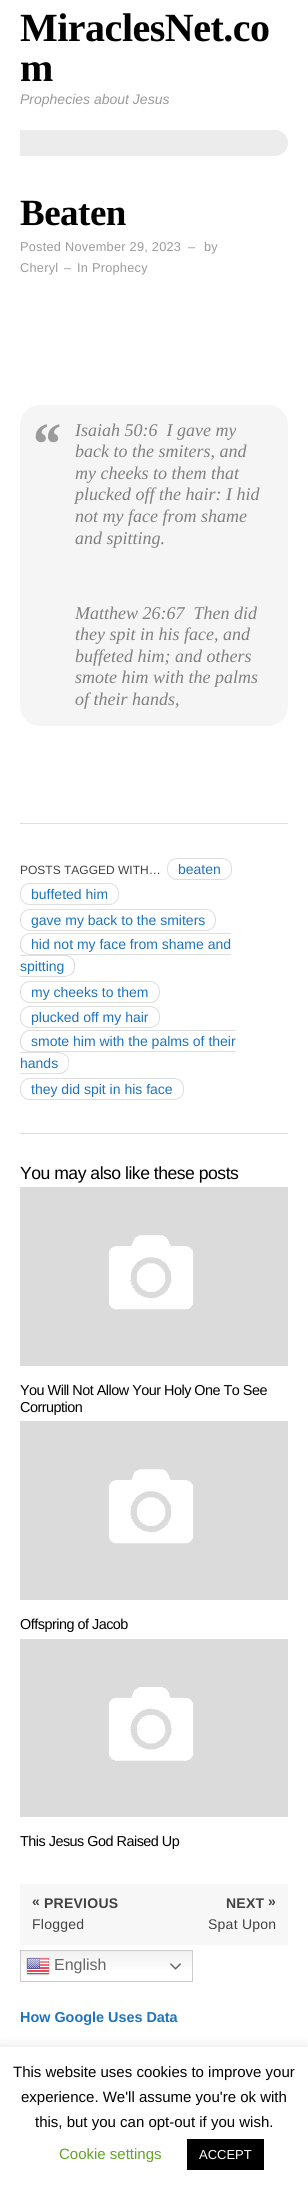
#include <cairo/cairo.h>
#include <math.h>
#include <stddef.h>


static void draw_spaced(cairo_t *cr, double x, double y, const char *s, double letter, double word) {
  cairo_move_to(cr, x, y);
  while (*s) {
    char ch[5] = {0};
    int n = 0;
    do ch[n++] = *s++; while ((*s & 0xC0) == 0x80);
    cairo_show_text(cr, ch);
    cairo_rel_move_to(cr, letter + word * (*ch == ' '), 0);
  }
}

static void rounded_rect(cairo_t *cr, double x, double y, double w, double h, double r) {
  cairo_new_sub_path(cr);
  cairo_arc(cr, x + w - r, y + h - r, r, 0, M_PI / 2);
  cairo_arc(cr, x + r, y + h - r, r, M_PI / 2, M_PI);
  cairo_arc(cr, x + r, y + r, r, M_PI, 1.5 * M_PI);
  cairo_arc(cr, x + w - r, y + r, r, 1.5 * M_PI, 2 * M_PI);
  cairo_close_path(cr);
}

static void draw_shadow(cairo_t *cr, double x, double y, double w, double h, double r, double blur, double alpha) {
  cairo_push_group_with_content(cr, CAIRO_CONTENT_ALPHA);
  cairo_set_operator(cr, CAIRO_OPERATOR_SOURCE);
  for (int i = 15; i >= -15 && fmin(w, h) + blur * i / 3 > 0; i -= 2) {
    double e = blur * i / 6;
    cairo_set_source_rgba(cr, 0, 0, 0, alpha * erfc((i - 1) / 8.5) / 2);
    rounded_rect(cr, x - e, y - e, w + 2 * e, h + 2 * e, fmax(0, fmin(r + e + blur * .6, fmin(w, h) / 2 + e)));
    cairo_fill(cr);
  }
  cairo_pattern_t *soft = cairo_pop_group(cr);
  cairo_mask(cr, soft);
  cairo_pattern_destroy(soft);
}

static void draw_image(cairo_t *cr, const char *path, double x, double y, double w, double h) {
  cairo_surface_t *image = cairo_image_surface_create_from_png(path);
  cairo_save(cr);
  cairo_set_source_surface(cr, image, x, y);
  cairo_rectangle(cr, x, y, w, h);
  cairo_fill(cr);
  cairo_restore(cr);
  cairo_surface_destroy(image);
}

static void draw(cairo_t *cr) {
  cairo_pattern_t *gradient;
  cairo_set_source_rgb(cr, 1, 1, 1);
  cairo_paint(cr);
  cairo_set_source_rgb(cr, 236 / 255.0, 236 / 255.0, 236 / 255.0);
  cairo_new_path(cr);
  cairo_move_to(cr, 20, 130);
  cairo_line_to(cr, 275, 130);
  cairo_curve_to(cr, 282, 130, 288, 136, 288, 143);
  cairo_curve_to(cr, 288, 150, 282, 156, 275, 156);
  cairo_line_to(cr, 20, 156);
  cairo_close_path(cr);
  cairo_fill(cr);
  cairo_set_source_rgb(cr, 245 / 255.0, 245 / 255.0, 245 / 255.0);
  rounded_rect(cr, 20, 405, 268, 321, 20);
  cairo_fill(cr);
  cairo_set_source_rgb(cr, 222 / 255.0, 222 / 255.0, 222 / 255.0);
  cairo_rectangle(cr, 20, 823, 268, 1);
  cairo_fill(cr);
  rounded_rect(cr, 167.5, 858.5, 64, 21, 9.5);
  cairo_set_line_width(cr, 1);
  cairo_stroke(cr);
  rounded_rect(cr, 20.5, 883.5, 98, 21, 9.5);
  cairo_stroke(cr);
  rounded_rect(cr, 20.5, 909.5, 195, 21, 9.5);
  cairo_stroke(cr);
  cairo_set_fill_rule(cr, CAIRO_FILL_RULE_EVEN_ODD);
  cairo_new_path(cr);
  cairo_move_to(cr, 30, 933);
  cairo_line_to(cr, 231, 933);
  cairo_line_to(cr, 231, 955);
  cairo_line_to(cr, 30, 955);
  cairo_curve_to(cr, 28, 955, 26, 954, 24, 953);
  cairo_curve_to(cr, 16, 948, 20, 933, 30, 933);
  cairo_close_path(cr);
  cairo_move_to(cr, 30, 934);
  cairo_line_to(cr, 231, 934);
  cairo_line_to(cr, 231, 954);
  cairo_line_to(cr, 30, 954);
  cairo_line_to(cr, 26, 953);
  cairo_curve_to(cr, 18, 950, 20, 934, 30, 934);
  cairo_close_path(cr);
  cairo_fill(cr);
  cairo_new_path(cr);
  cairo_move_to(cr, 20, 955);
  cairo_line_to(cr, 67, 955);
  cairo_curve_to(cr, 71, 956, 74, 959, 75, 963);
  cairo_curve_to(cr, 78, 980, 60, 977, 50, 977);
  cairo_line_to(cr, 20, 977);
  cairo_close_path(cr);
  cairo_move_to(cr, 20, 956);
  cairo_line_to(cr, 65, 956);
  cairo_curve_to(cr, 70, 956, 74, 960, 74, 965);
  cairo_line_to(cr, 74, 967);
  cairo_curve_to(cr, 74, 972, 70, 976, 65, 976);
  cairo_line_to(cr, 20, 976);
  cairo_close_path(cr);
  cairo_fill(cr);
  rounded_rect(cr, 20.5, 981.5, 139, 21, 9.5);
  cairo_stroke(cr);
  rounded_rect(cr, 20.5, 1006.5, 139, 21, 9.5);
  cairo_stroke(cr);
  cairo_new_path(cr);
  cairo_move_to(cr, 30, 1030);
  cairo_line_to(cr, 236, 1030);
  cairo_line_to(cr, 236, 1052);
  cairo_line_to(cr, 30, 1052);
  cairo_curve_to(cr, 28, 1052, 26, 1051, 24, 1050);
  cairo_curve_to(cr, 16, 1045, 20, 1030, 30, 1030);
  cairo_close_path(cr);
  cairo_move_to(cr, 30, 1031);
  cairo_line_to(cr, 236, 1031);
  cairo_line_to(cr, 236, 1051);
  cairo_line_to(cr, 30, 1051);
  cairo_line_to(cr, 26, 1050);
  cairo_curve_to(cr, 18, 1047, 20, 1031, 30, 1031);
  cairo_close_path(cr);
  cairo_fill(cr);
  cairo_new_path(cr);
  cairo_move_to(cr, 20, 1052);
  cairo_line_to(cr, 46, 1052);
  cairo_curve_to(cr, 54, 1052, 67, 1050, 69, 1060);
  cairo_curve_to(cr, 70, 1066, 67, 1073, 61, 1074);
  cairo_line_to(cr, 20, 1074);
  cairo_close_path(cr);
  cairo_move_to(cr, 20, 1053);
  cairo_line_to(cr, 46, 1053);
  cairo_curve_to(cr, 56, 1053, 71, 1051, 68, 1066);
  cairo_curve_to(cr, 67, 1069, 64, 1072, 61, 1073);
  cairo_line_to(cr, 20, 1073);
  cairo_close_path(cr);
  cairo_fill(cr);
  rounded_rect(cr, 20.5, 1078.5, 163, 21, 9.5);
  cairo_stroke(cr);
  cairo_rectangle(cr, 20, 1133, 268, 1);
  cairo_fill(cr);
  draw_image(cr, "images/1.png", 20, 1187, 268, 179);
  draw_image(cr, "images/2.png", 20, 1421, 268, 179);
  draw_image(cr, "images/3.png", 20, 1639, 268, 178);
  cairo_set_source_rgb(cr, 247 / 255.0, 247 / 255.0, 247 / 255.0);
  cairo_rectangle(cr, 20, 1884, 268, 61);
  cairo_fill(cr);
  gradient = cairo_pattern_create_linear(107, 1950, 107, 1982);
  cairo_pattern_add_color_stop_rgba(gradient, 0, 239 / 255.0, 239 / 255.0, 239 / 255.0, 1);
  cairo_pattern_add_color_stop_rgba(gradient, 0.7, 1, 1, 1, 1);
  cairo_set_source(cr, gradient);
  cairo_pattern_destroy(gradient);
  cairo_rectangle(cr, 21, 1951, 171, 18);
  cairo_fill(cr);
  cairo_rectangle(cr, 20.5, 1950.5, 172, 31);
  cairo_set_source_rgb(cr, 204 / 255.0, 204 / 255.0, 204 / 255.0);
  cairo_stroke(cr);
  draw_image(cr, "images/4.png", 26, 1957, 24, 19);
  draw_image(cr, "images/5.png", 170, 1963, 11, 7);
  cairo_set_source_rgb(cr, 172 / 255.0, 171 / 255.0, 171 / 255.0);
  draw_shadow(cr, 0, 2046, 308, 140, 0, 5, 0.3);
  cairo_set_source_rgb(cr, 1, 1, 1);
  cairo_rectangle(cr, 0, 2047, 308, 140);
  cairo_fill(cr);
  cairo_set_source_rgb(cr, 0, 0, 0);
  cairo_rectangle(cr, 187, 2139, 77, 31);
  cairo_fill(cr);
  cairo_select_font_face(cr, "Liberation Serif", CAIRO_FONT_SLANT_NORMAL, CAIRO_FONT_WEIGHT_BOLD);
  cairo_set_font_size(cr, 40);
  draw_spaced(cr, 20, 41, "MiraclesNet.co", -0.5, 0);
  draw_spaced(cr, 20, 81, "m", -0.5, 0);
  cairo_select_font_face(cr, "Liberation Sans", CAIRO_FONT_SLANT_ITALIC, CAIRO_FONT_WEIGHT_NORMAL);
  cairo_set_font_size(cr, 14);
  cairo_set_source_rgb(cr, 155 / 255.0, 155 / 255.0, 155 / 255.0);
  cairo_move_to(cr, 20, 104);
  cairo_show_text(cr, "Prophecies about Jesus");
  cairo_select_font_face(cr, "Liberation Serif", CAIRO_FONT_SLANT_NORMAL, CAIRO_FONT_WEIGHT_BOLD);
  cairo_set_font_size(cr, 37);
  cairo_set_source_rgb(cr, 0, 0, 0);
  draw_spaced(cr, 20, 225, "Beaten", -0.5, 0);
  cairo_select_font_face(cr, "Liberation Sans", CAIRO_FONT_SLANT_NORMAL, CAIRO_FONT_WEIGHT_NORMAL);
  cairo_set_font_size(cr, 12.75);
  cairo_set_source_rgb(cr, 155 / 255.0, 155 / 255.0, 155 / 255.0);
  draw_spaced(cr, 20, 251, "Posted November 29, 2023", 0.25, 0);
  draw_spaced(cr, 188, 251, "–", 0.25, 0);
  draw_spaced(cr, 204, 251, "by", 0.25, 0);
  draw_spaced(cr, 20, 272, "Cheryl", 0.25, 0);
  draw_spaced(cr, 64, 272, "–", 0.25, 0);
  draw_spaced(cr, 77, 272, "In Prophecy", 0.25, 0);
  cairo_select_font_face(cr, "Liberation Serif", CAIRO_FONT_SLANT_ITALIC, CAIRO_FONT_WEIGHT_BOLD);
  cairo_set_font_size(cr, 60);
  cairo_move_to(cr, 30, 464);
  cairo_show_text(cr, "“");
  cairo_select_font_face(cr, "Liberation Serif", CAIRO_FONT_SLANT_ITALIC, CAIRO_FONT_WEIGHT_NORMAL);
  cairo_set_font_size(cr, 18);
  cairo_set_source_rgb(cr, 128 / 255.0, 128 / 255.0, 128 / 255.0);
  cairo_move_to(cr, 75, 436);
  cairo_show_text(cr, "Isaiah 50:6  I gave my");
  cairo_move_to(cr, 75, 457);
  cairo_show_text(cr, "back to the smiters, and");
  cairo_move_to(cr, 75, 479);
  cairo_show_text(cr, "my cheeks to them that");
  cairo_move_to(cr, 75, 500);
  cairo_show_text(cr, "plucked off the hair: I hid");
  cairo_move_to(cr, 75, 522);
  cairo_show_text(cr, "not my face from shame");
  cairo_move_to(cr, 75, 544);
  cairo_show_text(cr, "and spitting.");
  cairo_move_to(cr, 75, 619);
  cairo_show_text(cr, "Matthew 26:67  Then did");
  cairo_move_to(cr, 75, 640);
  cairo_show_text(cr, "they spit in his face, and");
  cairo_move_to(cr, 75, 662);
  cairo_show_text(cr, "buffeted him; and others");
  cairo_move_to(cr, 75, 683);
  cairo_show_text(cr, "smote him with the palms");
  cairo_move_to(cr, 75, 705);
  cairo_show_text(cr, "of their hands,");
  cairo_select_font_face(cr, "Liberation Sans", CAIRO_FONT_SLANT_NORMAL, CAIRO_FONT_WEIGHT_NORMAL);
  cairo_set_font_size(cr, 14);
  cairo_set_source_rgb(cr, 30 / 255.0, 115 / 255.0, 190 / 255.0);
  cairo_move_to(cr, 178, 874);
  cairo_show_text(cr, "beaten");
  cairo_move_to(cr, 31, 899);
  cairo_show_text(cr, "buffeted him");
  cairo_move_to(cr, 31, 925);
  cairo_show_text(cr, "gave my back to the smiters");
  cairo_move_to(cr, 31, 949);
  cairo_show_text(cr, "hid not my face from shame and");
  cairo_move_to(cr, 20, 971);
  cairo_show_text(cr, "spitting");
  cairo_move_to(cr, 31, 997);
  cairo_show_text(cr, "my cheeks to them");
  cairo_move_to(cr, 31, 1022);
  cairo_show_text(cr, "plucked off my hair");
  cairo_move_to(cr, 31, 1046);
  cairo_show_text(cr, "smote him with the palms of their");
  cairo_move_to(cr, 20, 1068);
  cairo_show_text(cr, "hands");
  cairo_move_to(cr, 31, 1094);
  cairo_show_text(cr, "they did spit in his face");
  cairo_set_font_size(cr, 12);
  cairo_set_source_rgb(cr, 66 / 255.0, 66 / 255.0, 66 / 255.0);
  cairo_move_to(cr, 20, 874);
  cairo_show_text(cr, "POSTS TAGGED WITH…");
  cairo_set_font_size(cr, 17.6);
  cairo_set_source_rgb(cr, 0, 0, 0);
  draw_spaced(cr, 20, 1179, "You may also like these posts", -0.5, 0);
  cairo_set_font_size(cr, 14.4);
  draw_spaced(cr, 20, 1395, "You Will Not Allow Your Holy One To See", -0.5, 0);
  draw_spaced(cr, 20, 1412, "Corruption", -0.5, 0);
  draw_spaced(cr, 20, 1629, "Offspring of Jacob", -0.5, 0);
  draw_spaced(cr, 20, 1846, "This Jesus God Raised Up", -0.5, 0);
  cairo_select_font_face(cr, "Liberation Sans", CAIRO_FONT_SLANT_NORMAL, CAIRO_FONT_WEIGHT_BOLD);
  cairo_set_font_size(cr, 14);
  cairo_set_source_rgb(cr, 66 / 255.0, 66 / 255.0, 66 / 255.0);
  draw_spaced(cr, 32, 1906, "«", 0.25, 0);
  draw_spaced(cr, 44, 1908, "PREVIOUS", 0.25, 0);
  cairo_select_font_face(cr, "Liberation Sans", CAIRO_FONT_SLANT_NORMAL, CAIRO_FONT_WEIGHT_NORMAL);
  draw_spaced(cr, 32, 1929, "Flogged", 0.25, 0);
  cairo_select_font_face(cr, "Liberation Sans", CAIRO_FONT_SLANT_NORMAL, CAIRO_FONT_WEIGHT_BOLD);
  draw_spaced(cr, 226, 1908, "NEXT", 0.25, 0);
  draw_spaced(cr, 268, 1906, "»", 0.25, 0);
  cairo_select_font_face(cr, "Liberation Sans", CAIRO_FONT_SLANT_NORMAL, CAIRO_FONT_WEIGHT_NORMAL);
  draw_spaced(cr, 208, 1929, "Spat Upon", 0.25, 0);
  cairo_set_font_size(cr, 16);
  cairo_set_source_rgb(cr, 102 / 255.0, 102 / 255.0, 102 / 255.0);
  cairo_move_to(cr, 54, 1970);
  cairo_show_text(cr, "English");
  cairo_select_font_face(cr, "Liberation Sans", CAIRO_FONT_SLANT_NORMAL, CAIRO_FONT_WEIGHT_BOLD);
  cairo_set_font_size(cr, 14.4);
  cairo_set_source_rgb(cr, 30 / 255.0, 115 / 255.0, 190 / 255.0);
  cairo_move_to(cr, 20, 2022);
  cairo_show_text(cr, "How Google Uses Data");
  cairo_select_font_face(cr, "Liberation Sans", CAIRO_FONT_SLANT_NORMAL, CAIRO_FONT_WEIGHT_NORMAL);
  cairo_set_font_size(cr, 15);
  cairo_set_source_rgb(cr, 0, 0, 0);
  cairo_move_to(cr, 13, 2077);
  cairo_show_text(cr, "This website uses cookies to improve your");
  cairo_move_to(cr, 21, 2102);
  cairo_show_text(cr, "experience. We'll assume you're ok with");
  cairo_move_to(cr, 35, 2127);
  cairo_show_text(cr, "this, but you can opt-out if you wish.");
  cairo_set_source_rgb(cr, 98 / 255.0, 163 / 255.0, 41 / 255.0);
  cairo_move_to(cr, 59, 2159);
  cairo_show_text(cr, "Cookie settings");
  cairo_set_font_size(cr, 13);
  cairo_set_source_rgb(cr, 1, 1, 1);
  cairo_move_to(cr, 199, 2159);
  cairo_show_text(cr, "ACCEPT");
}

int main(void) {
  cairo_surface_t *surface = cairo_image_surface_create(CAIRO_FORMAT_RGB24, 308, 2187);
  cairo_t *cr = cairo_create(surface);
  cairo_font_options_t *options = cairo_font_options_create();
  cairo_font_options_set_hint_metrics(options, CAIRO_HINT_METRICS_OFF);
  cairo_font_options_set_hint_style(options, CAIRO_HINT_STYLE_NONE);
  cairo_set_font_options(cr, options);
  cairo_set_miter_limit(cr, 4);
  draw(cr);
  cairo_surface_write_to_png(surface, "out.png");
  cairo_font_options_destroy(options);
  cairo_destroy(cr);
  cairo_surface_destroy(surface);
  return 0;
}
